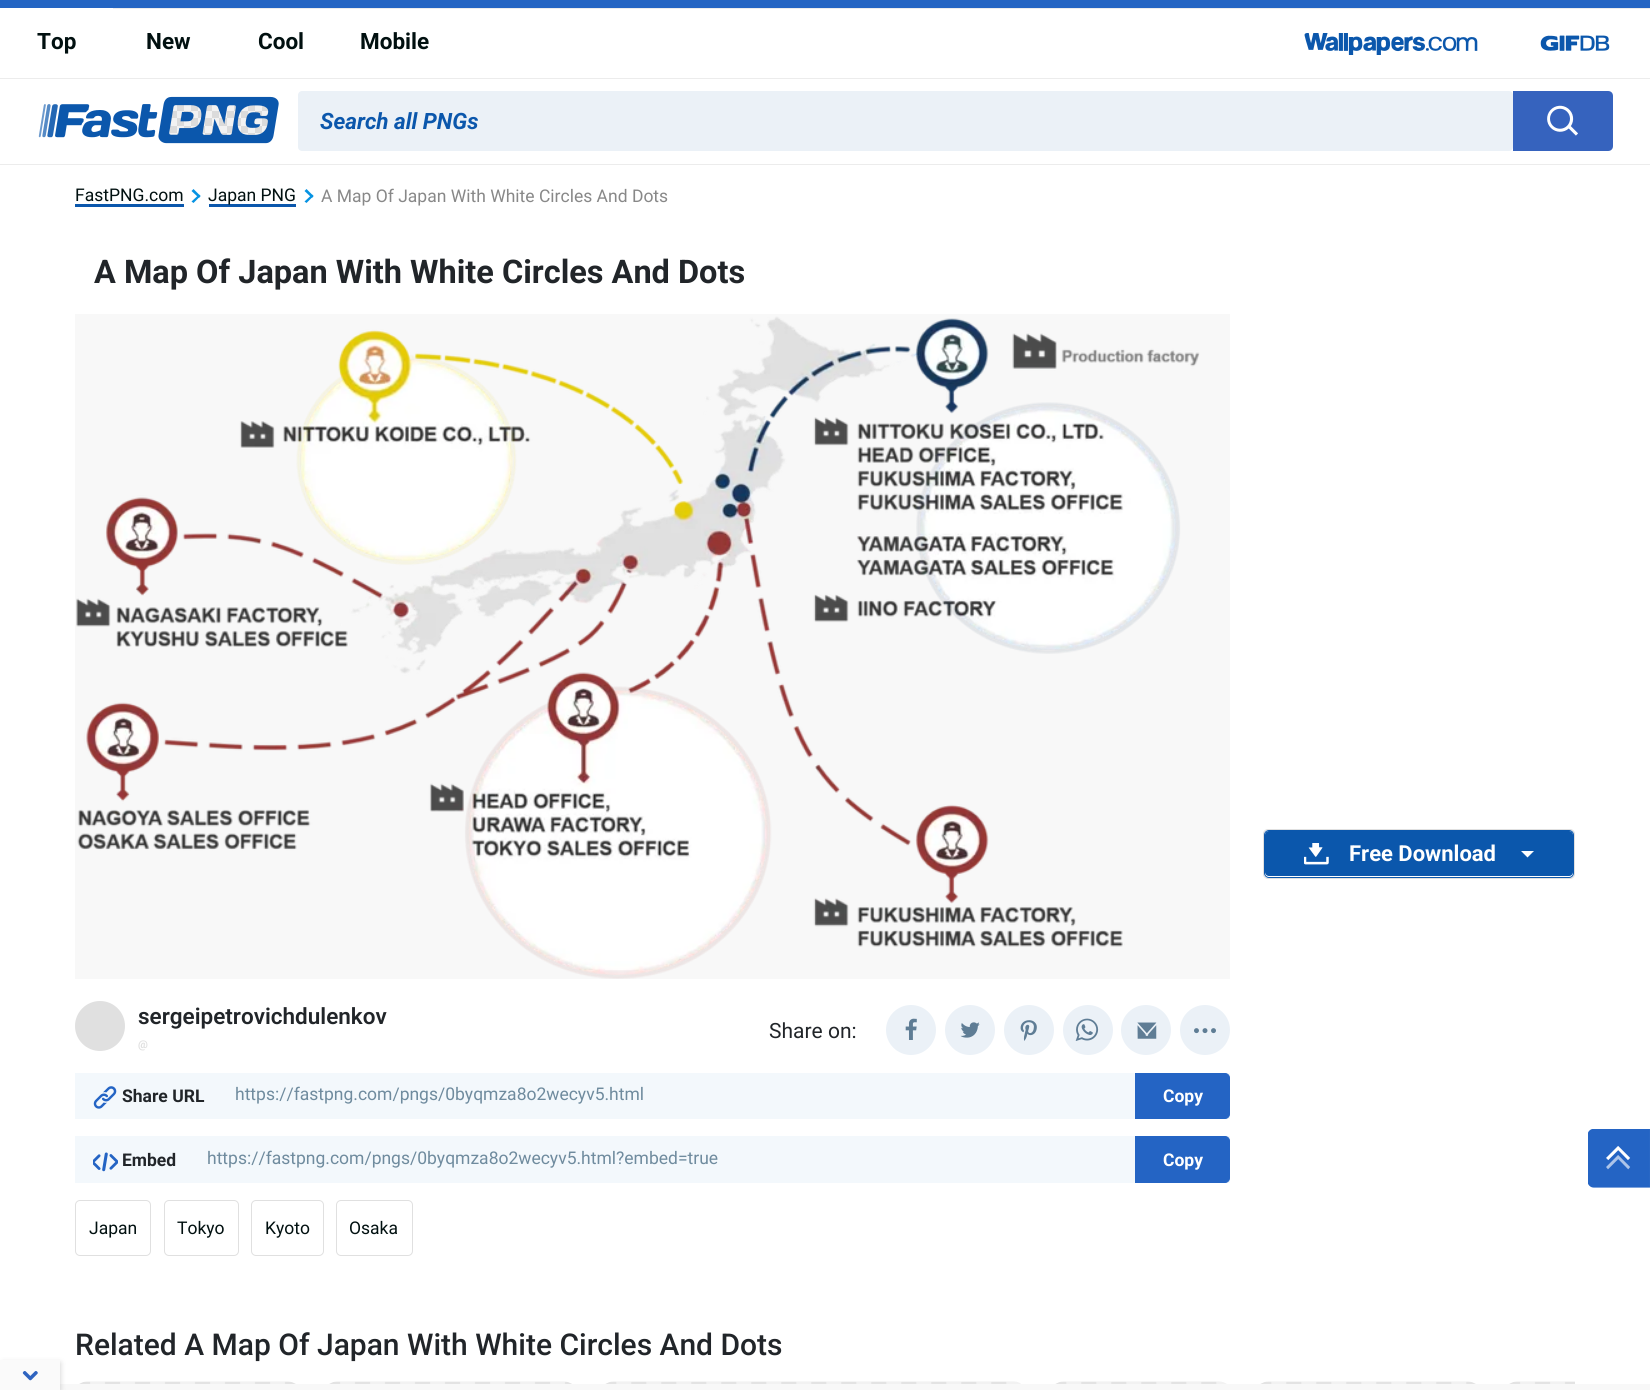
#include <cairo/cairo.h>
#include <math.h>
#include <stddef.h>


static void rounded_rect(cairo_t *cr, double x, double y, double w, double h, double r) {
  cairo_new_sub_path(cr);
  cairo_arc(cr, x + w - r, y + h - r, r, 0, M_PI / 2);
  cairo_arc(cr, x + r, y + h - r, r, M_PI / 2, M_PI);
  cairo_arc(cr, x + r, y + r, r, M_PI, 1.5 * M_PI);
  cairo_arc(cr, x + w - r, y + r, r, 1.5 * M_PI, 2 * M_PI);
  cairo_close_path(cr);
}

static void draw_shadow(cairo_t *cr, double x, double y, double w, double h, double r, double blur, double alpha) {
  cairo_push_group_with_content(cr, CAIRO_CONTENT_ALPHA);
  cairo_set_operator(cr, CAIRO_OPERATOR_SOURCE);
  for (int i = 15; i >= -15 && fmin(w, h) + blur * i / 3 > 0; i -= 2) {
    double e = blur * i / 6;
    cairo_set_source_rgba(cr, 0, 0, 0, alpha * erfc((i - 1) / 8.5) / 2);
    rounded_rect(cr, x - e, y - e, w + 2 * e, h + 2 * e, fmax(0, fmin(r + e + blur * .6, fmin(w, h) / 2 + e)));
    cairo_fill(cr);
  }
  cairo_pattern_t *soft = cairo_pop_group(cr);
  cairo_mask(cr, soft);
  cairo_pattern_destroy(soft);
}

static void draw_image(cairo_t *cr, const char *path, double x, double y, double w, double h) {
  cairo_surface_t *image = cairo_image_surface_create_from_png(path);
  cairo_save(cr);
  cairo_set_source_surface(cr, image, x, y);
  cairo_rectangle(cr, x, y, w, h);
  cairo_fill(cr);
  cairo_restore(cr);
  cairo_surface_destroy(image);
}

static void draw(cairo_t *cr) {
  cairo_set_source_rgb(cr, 1, 1, 1);
  cairo_paint(cr);
  cairo_set_source_rgb(cr, 36 / 255.0, 101 / 255.0, 195 / 255.0);
  cairo_rectangle(cr, 0, 0, 1650, 8);
  cairo_fill(cr);
  cairo_set_source_rgb(cr, 236 / 255.0, 236 / 255.0, 236 / 255.0);
  cairo_rectangle(cr, 0, 78, 1650, 1);
  cairo_fill(cr);
  cairo_rectangle(cr, 113, 8, 1537, 1);
  cairo_fill(cr);
  draw_image(cr, "images/1.png", 1304, 33, 174, 22);
  draw_image(cr, "images/2.png", 1540, 35, 70, 16);
  cairo_rectangle(cr, 0, 164, 1650, 1);
  cairo_fill(cr);
  draw_image(cr, "images/3.png", 38, 96, 241, 48);
  cairo_set_source_rgb(cr, 235 / 255.0, 241 / 255.0, 247 / 255.0);
  rounded_rect(cr, 298, 91, 1215, 60, 4);
  cairo_fill(cr);
  cairo_set_source_rgb(cr, 54 / 255.0, 99 / 255.0, 190 / 255.0);
  cairo_new_path(cr);
  cairo_move_to(cr, 1513, 91);
  cairo_line_to(cr, 1608, 91);
  cairo_curve_to(cr, 1611, 91, 1613, 93, 1613, 96);
  cairo_line_to(cr, 1613, 146);
  cairo_curve_to(cr, 1613, 149, 1611, 151, 1608, 151);
  cairo_line_to(cr, 1513, 151);
  cairo_close_path(cr);
  cairo_fill(cr);
  draw_image(cr, "images/4.png", 1547, 105, 31, 31);
  cairo_set_source_rgb(cr, 11 / 255.0, 87 / 255.0, 172 / 255.0);
  cairo_rectangle(cr, 75, 204, 109, 3);
  cairo_fill(cr);
  cairo_set_source_rgb(cr, 6 / 255.0, 147 / 255.0, 227 / 255.0);
  cairo_new_path(cr);
  cairo_move_to(cr, 193.5, 189);
  cairo_line_to(cr, 200.5, 196);
  cairo_line_to(cr, 199, 198);
  cairo_line_to(cr, 191.5, 191);
  cairo_close_path(cr);
  cairo_fill(cr);
  cairo_new_path(cr);
  cairo_move_to(cr, 199, 194.5);
  cairo_line_to(cr, 200.5, 196);
  cairo_line_to(cr, 193.5, 203);
  cairo_line_to(cr, 191.5, 201.5);
  cairo_close_path(cr);
  cairo_fill(cr);
  cairo_set_source_rgb(cr, 11 / 255.0, 87 / 255.0, 172 / 255.0);
  cairo_rectangle(cr, 209, 204, 87, 3);
  cairo_fill(cr);
  cairo_set_source_rgb(cr, 6 / 255.0, 147 / 255.0, 227 / 255.0);
  cairo_new_path(cr);
  cairo_move_to(cr, 306.5, 189);
  cairo_line_to(cr, 313.5, 196);
  cairo_line_to(cr, 312, 198);
  cairo_line_to(cr, 304.5, 191);
  cairo_close_path(cr);
  cairo_fill(cr);
  cairo_new_path(cr);
  cairo_move_to(cr, 312, 194.5);
  cairo_line_to(cr, 313.5, 196);
  cairo_line_to(cr, 306.5, 203);
  cairo_line_to(cr, 304.5, 201.5);
  cairo_close_path(cr);
  cairo_fill(cr);
  rounded_rect(cr, 1263.5, 829.5, 311, 49, 4.5);
  cairo_set_source_rgb(cr, 224 / 255.0, 224 / 255.0, 224 / 255.0);
  cairo_set_line_width(cr, 1);
  cairo_stroke(cr);
  cairo_set_source_rgb(cr, 11 / 255.0, 87 / 255.0, 172 / 255.0);
  rounded_rect(cr, 1265, 831, 308, 45, 4);
  cairo_fill(cr);
  rounded_rect(cr, 1264.5, 830.5, 309, 47, 4.5);
  cairo_stroke(cr);
  draw_image(cr, "images/5.png", 1304, 843, 25, 22);
  cairo_set_source_rgb(cr, 1, 1, 1);
  cairo_new_path(cr);
  cairo_move_to(cr, 1521, 851);
  cairo_line_to(cr, 1534, 851);
  cairo_line_to(cr, 1527.5, 857.5);
  cairo_close_path(cr);
  cairo_fill(cr);
  cairo_set_source_rgb(cr, 248 / 255.0, 248 / 255.0, 248 / 255.0);
  cairo_rectangle(cr, 75, 314, 1155, 665);
  cairo_fill(cr);
  draw_image(cr, "images/6.png", 76, 316, 1124, 663);
  cairo_set_source_rgb(cr, 224 / 255.0, 224 / 255.0, 224 / 255.0);
  cairo_arc(cr, 100, 1026, 25, 0, 2 * M_PI);
  cairo_fill(cr);
  cairo_set_source_rgb(cr, 235 / 255.0, 241 / 255.0, 247 / 255.0);
  cairo_arc(cr, 911, 1030, 25, 0, 2 * M_PI);
  cairo_fill(cr);
  draw_image(cr, "images/7.png", 905, 1018, 12, 22);
  cairo_arc(cr, 970, 1030, 25, 0, 2 * M_PI);
  cairo_fill(cr);
  draw_image(cr, "images/8.png", 960, 1022, 20, 16);
  cairo_arc(cr, 1029, 1030, 25, 0, 2 * M_PI);
  cairo_fill(cr);
  draw_image(cr, "images/9.png", 1020, 1020, 17, 21);
  cairo_arc(cr, 1088, 1030, 25, 0, 2 * M_PI);
  cairo_fill(cr);
  draw_image(cr, "images/10.png", 1075, 1018, 24, 23);
  cairo_arc(cr, 1146, 1030, 25, 0, 2 * M_PI);
  cairo_fill(cr);
  draw_image(cr, "images/11.png", 1137, 1022, 20, 17);
  cairo_arc(cr, 1205, 1030, 25, 0, 2 * M_PI);
  cairo_fill(cr);
  draw_image(cr, "images/12.png", 1194, 1028, 22, 6);
  cairo_set_source_rgb(cr, 243 / 255.0, 248 / 255.0, 252 / 255.0);
  cairo_rectangle(cr, 75, 1073, 1155, 46);
  cairo_fill(cr);
  draw_image(cr, "images/13.png", 93, 1086, 24, 23);
  cairo_set_source_rgb(cr, 36 / 255.0, 100 / 255.0, 196 / 255.0);
  cairo_new_path(cr);
  cairo_move_to(cr, 1135.5, 1073.5);
  cairo_line_to(cr, 1225, 1073.5);
  cairo_curve_to(cr, 1227.5, 1073.5, 1229.5, 1075.5, 1229.5, 1078);
  cairo_line_to(cr, 1229.5, 1114);
  cairo_curve_to(cr, 1229.5, 1116.5, 1227.5, 1118.5, 1225, 1118.5);
  cairo_line_to(cr, 1135.5, 1118.5);
  cairo_close_path(cr);
  cairo_fill_preserve(cr);
  cairo_stroke(cr);
  cairo_set_source_rgb(cr, 243 / 255.0, 248 / 255.0, 252 / 255.0);
  cairo_rectangle(cr, 75, 1136, 1155, 47);
  cairo_fill(cr);
  draw_image(cr, "images/14.png", 93, 1152, 25, 20);
  cairo_set_source_rgb(cr, 36 / 255.0, 100 / 255.0, 196 / 255.0);
  cairo_new_path(cr);
  cairo_move_to(cr, 1135.5, 1136.5);
  cairo_line_to(cr, 1225, 1136.5);
  cairo_curve_to(cr, 1227.5, 1136.5, 1229.5, 1138.5, 1229.5, 1141);
  cairo_line_to(cr, 1229.5, 1178);
  cairo_curve_to(cr, 1229.5, 1180.5, 1227.5, 1182.5, 1225, 1182.5);
  cairo_line_to(cr, 1135.5, 1182.5);
  cairo_close_path(cr);
  cairo_fill_preserve(cr);
  cairo_stroke(cr);
  rounded_rect(cr, 75.5, 1200.5, 75, 55, 4.5);
  cairo_set_source_rgb(cr, 224 / 255.0, 224 / 255.0, 224 / 255.0);
  cairo_stroke(cr);
  rounded_rect(cr, 164.5, 1200.5, 74, 55, 4.5);
  cairo_stroke(cr);
  rounded_rect(cr, 251.5, 1200.5, 72, 55, 4.5);
  cairo_stroke(cr);
  rounded_rect(cr, 336.5, 1200.5, 76, 55, 4.5);
  cairo_stroke(cr);
  draw_image(cr, "images/15.png", 79, 1381, 217, 3);
  draw_image(cr, "images/16.png", 329, 1381, 243, 3);
  draw_image(cr, "images/17.png", 605, 1381, 416, 3);
  draw_image(cr, "images/18.png", 1055, 1381, 172, 3);
  draw_image(cr, "images/19.png", 1260, 1381, 216, 3);
  draw_image(cr, "images/20.png", 1509, 1381, 66, 3);
  draw_image(cr, "images/21.png", 1588, 1129, 62, 59);
  cairo_set_source_rgb(cr, 248 / 255.0, 248 / 255.0, 248 / 255.0);
  cairo_rectangle(cr, 60, 1384, 1590, 6);
  cairo_fill(cr);
  cairo_set_source_rgb(cr, 0, 0, 0);
  draw_shadow(cr, 3, 1363, 57, 27, 0, 3, 0.2);
  cairo_set_source_rgb(cr, 250 / 255.0, 250 / 255.0, 250 / 255.0);
  cairo_rectangle(cr, 0, 1360, 60, 30);
  cairo_fill(cr);
  draw_image(cr, "images/22.png", 22, 1371, 16, 10);
  cairo_select_font_face(cr, "Roboto", CAIRO_FONT_SLANT_NORMAL, CAIRO_FONT_WEIGHT_BOLD);
  cairo_set_font_size(cr, 22.5);
  cairo_set_source_rgb(cr, 1 / 255.0, 16 / 255.0, 16 / 255.0);
  cairo_move_to(cr, 37, 49);
  cairo_show_text(cr, "Top");
  cairo_move_to(cr, 146, 49);
  cairo_show_text(cr, "New");
  cairo_move_to(cr, 258, 49);
  cairo_show_text(cr, "Cool");
  cairo_move_to(cr, 360, 49);
  cairo_show_text(cr, "Mobile");
  cairo_select_font_face(cr, "Roboto", CAIRO_FONT_SLANT_ITALIC, CAIRO_FONT_WEIGHT_BOLD);
  cairo_set_source_rgb(cr, 11 / 255.0, 87 / 255.0, 172 / 255.0);
  cairo_move_to(cr, 320, 129);
  cairo_show_text(cr, "Search all PNGs");
  cairo_select_font_face(cr, "Roboto", CAIRO_FONT_SLANT_NORMAL, CAIRO_FONT_WEIGHT_NORMAL);
  cairo_set_font_size(cr, 17.5);
  cairo_set_source_rgb(cr, 1 / 255.0, 16 / 255.0, 16 / 255.0);
  cairo_move_to(cr, 75, 201);
  cairo_show_text(cr, "FastPNG.com");
  cairo_move_to(cr, 208, 201);
  cairo_show_text(cr, "Japan PNG");
  cairo_set_source_rgb(cr, 136 / 255.0, 136 / 255.0, 136 / 255.0);
  cairo_move_to(cr, 321, 202);
  cairo_show_text(cr, "A Map Of Japan With White Circles And Dots");
  cairo_select_font_face(cr, "Roboto", CAIRO_FONT_SLANT_NORMAL, CAIRO_FONT_WEIGHT_BOLD);
  cairo_set_font_size(cr, 32.5);
  cairo_set_source_rgb(cr, 33 / 255.0, 37 / 255.0, 41 / 255.0);
  cairo_move_to(cr, 94, 283);
  cairo_show_text(cr, "A Map Of Japan With White Circles And Dots");
  cairo_set_font_size(cr, 22);
  cairo_set_source_rgb(cr, 1, 1, 1);
  cairo_move_to(cr, 1349, 861);
  cairo_show_text(cr, "Free Download");
  cairo_select_font_face(cr, "Roboto SemiBold", CAIRO_FONT_SLANT_NORMAL, CAIRO_FONT_WEIGHT_NORMAL);
  cairo_set_font_size(cr, 22.5);
  cairo_set_source_rgb(cr, 33 / 255.0, 37 / 255.0, 41 / 255.0);
  cairo_move_to(cr, 138, 1024);
  cairo_show_text(cr, "sergeipetrovichdulenkov");
  cairo_select_font_face(cr, "Roboto", CAIRO_FONT_SLANT_NORMAL, CAIRO_FONT_WEIGHT_BOLD);
  cairo_set_font_size(cr, 11);
  cairo_set_source_rgb(cr, 224 / 255.0, 224 / 255.0, 224 / 255.0);
  cairo_move_to(cr, 138, 1048);
  cairo_show_text(cr, "@");
  cairo_select_font_face(cr, "Roboto", CAIRO_FONT_SLANT_NORMAL, CAIRO_FONT_WEIGHT_NORMAL);
  cairo_set_font_size(cr, 21);
  cairo_set_source_rgb(cr, 33 / 255.0, 37 / 255.0, 41 / 255.0);
  cairo_move_to(cr, 769, 1038);
  cairo_show_text(cr, "Share on:");
  cairo_select_font_face(cr, "Roboto", CAIRO_FONT_SLANT_NORMAL, CAIRO_FONT_WEIGHT_BOLD);
  cairo_set_font_size(cr, 17.5);
  cairo_move_to(cr, 122, 1102);
  cairo_show_text(cr, "Share URL");
  cairo_select_font_face(cr, "Roboto", CAIRO_FONT_SLANT_NORMAL, CAIRO_FONT_WEIGHT_NORMAL);
  cairo_set_source_rgb(cr, 111 / 255.0, 139 / 255.0, 158 / 255.0);
  cairo_move_to(cr, 235, 1100);
  cairo_show_text(cr, "https://fastpng.com/pngs/0byqmza8o2wecyv5.html");
  cairo_select_font_face(cr, "Roboto", CAIRO_FONT_SLANT_NORMAL, CAIRO_FONT_WEIGHT_BOLD);
  cairo_set_source_rgb(cr, 1, 1, 1);
  cairo_move_to(cr, 1163, 1102);
  cairo_show_text(cr, "Copy");
  cairo_set_source_rgb(cr, 33 / 255.0, 37 / 255.0, 41 / 255.0);
  cairo_move_to(cr, 122, 1166);
  cairo_show_text(cr, "Embed");
  cairo_select_font_face(cr, "Roboto", CAIRO_FONT_SLANT_NORMAL, CAIRO_FONT_WEIGHT_NORMAL);
  cairo_set_source_rgb(cr, 111 / 255.0, 139 / 255.0, 158 / 255.0);
  cairo_move_to(cr, 207, 1164);
  cairo_show_text(cr, "https://fastpng.com/pngs/0byqmza8o2wecyv5.html?embed=true");
  cairo_select_font_face(cr, "Roboto", CAIRO_FONT_SLANT_NORMAL, CAIRO_FONT_WEIGHT_BOLD);
  cairo_set_source_rgb(cr, 1, 1, 1);
  cairo_move_to(cr, 1163, 1166);
  cairo_show_text(cr, "Copy");
  cairo_select_font_face(cr, "Roboto", CAIRO_FONT_SLANT_NORMAL, CAIRO_FONT_WEIGHT_NORMAL);
  cairo_set_source_rgb(cr, 1 / 255.0, 16 / 255.0, 16 / 255.0);
  cairo_move_to(cr, 89, 1234);
  cairo_show_text(cr, "Japan");
  cairo_move_to(cr, 177, 1234);
  cairo_show_text(cr, "Tokyo");
  cairo_move_to(cr, 265, 1234);
  cairo_show_text(cr, "Kyoto");
  cairo_move_to(cr, 349, 1234);
  cairo_show_text(cr, "Osaka");
  cairo_select_font_face(cr, "Roboto Medium", CAIRO_FONT_SLANT_NORMAL, CAIRO_FONT_WEIGHT_NORMAL);
  cairo_set_font_size(cr, 30);
  cairo_set_source_rgb(cr, 33 / 255.0, 37 / 255.0, 41 / 255.0);
  cairo_move_to(cr, 75, 1355);
  cairo_show_text(cr, "Related A Map Of Japan With White Circles And Dots");
}

int main(void) {
  cairo_surface_t *surface = cairo_image_surface_create(CAIRO_FORMAT_RGB24, 1650, 1390);
  cairo_t *cr = cairo_create(surface);
  cairo_font_options_t *options = cairo_font_options_create();
  cairo_font_options_set_hint_metrics(options, CAIRO_HINT_METRICS_OFF);
  cairo_font_options_set_hint_style(options, CAIRO_HINT_STYLE_NONE);
  cairo_set_font_options(cr, options);
  cairo_set_miter_limit(cr, 4);
  draw(cr);
  cairo_surface_write_to_png(surface, "out.png");
  cairo_font_options_destroy(options);
  cairo_destroy(cr);
  cairo_surface_destroy(surface);
  return 0;
}
